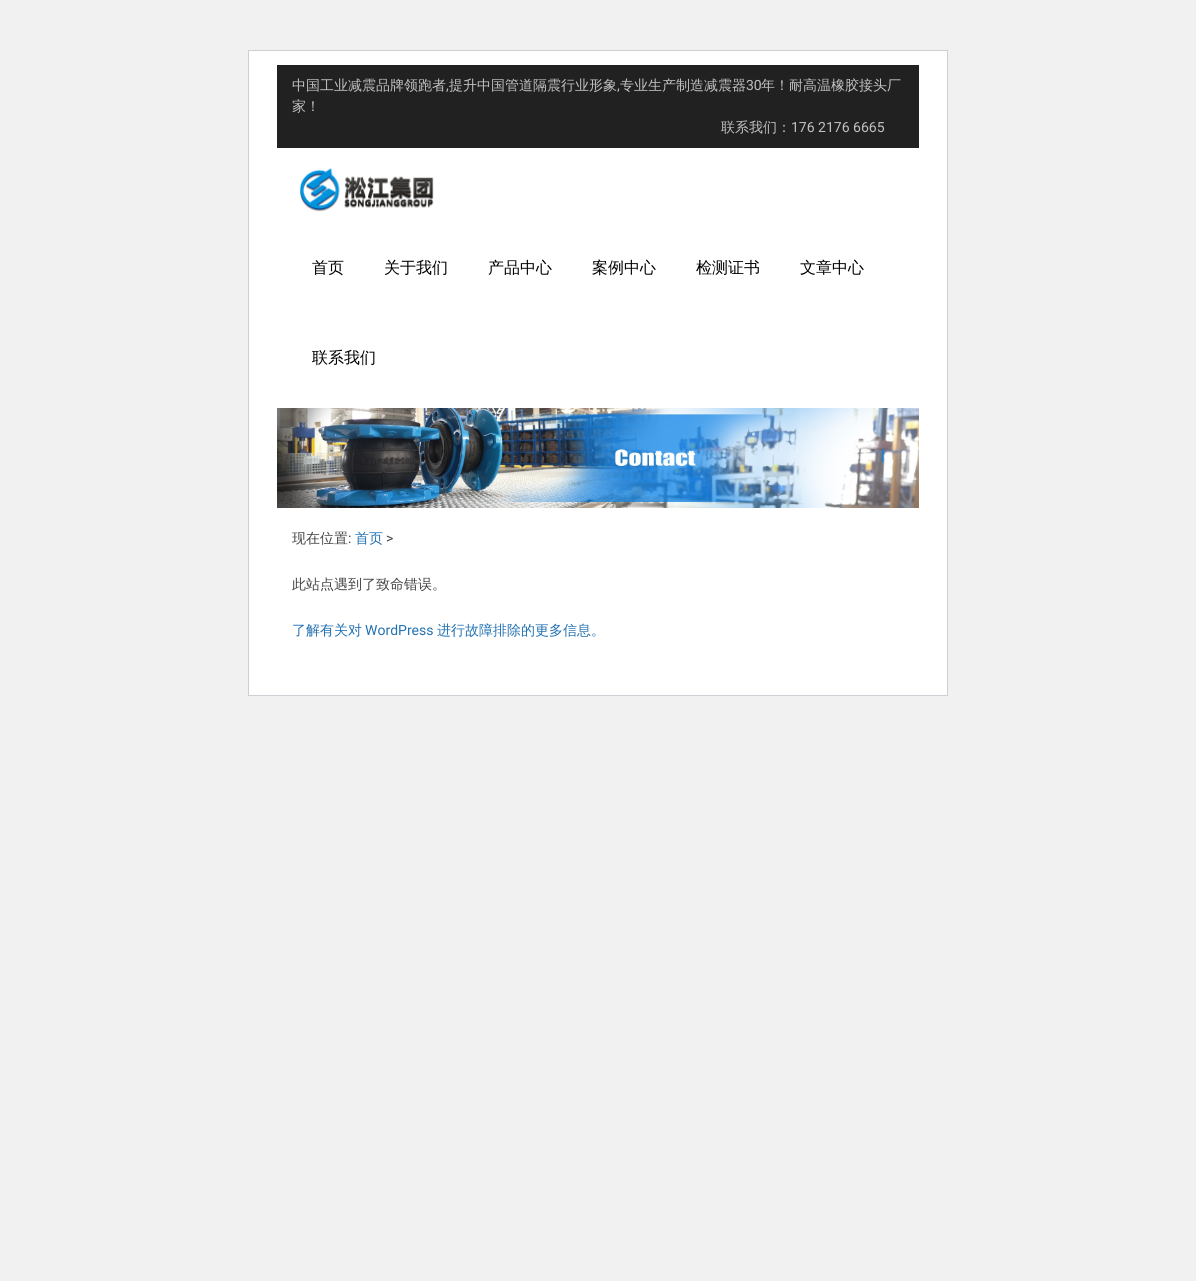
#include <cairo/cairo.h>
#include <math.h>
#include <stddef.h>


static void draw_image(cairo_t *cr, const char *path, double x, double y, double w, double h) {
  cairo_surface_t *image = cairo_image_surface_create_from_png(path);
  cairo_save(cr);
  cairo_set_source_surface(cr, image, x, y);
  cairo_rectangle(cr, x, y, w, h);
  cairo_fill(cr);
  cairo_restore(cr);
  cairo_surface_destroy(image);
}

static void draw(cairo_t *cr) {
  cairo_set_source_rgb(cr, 241 / 255.0, 241 / 255.0, 241 / 255.0);
  cairo_paint(cr);
  cairo_set_source_rgb(cr, 1, 1, 1);
  cairo_rectangle(cr, 248.5, 50.5, 699, 645);
  cairo_fill_preserve(cr);
  cairo_set_source_rgb(cr, 204 / 255.0, 208 / 255.0, 212 / 255.0);
  cairo_set_line_width(cr, 1);
  cairo_stroke(cr);
  cairo_set_source_rgb(cr, 33 / 255.0, 33 / 255.0, 33 / 255.0);
  cairo_rectangle(cr, 277, 65, 642, 83);
  cairo_fill(cr);
  draw_image(cr, "images/1.png", 299, 168, 135, 44);
  draw_image(cr, "images/2.png", 277, 408, 642, 100);
  cairo_select_font_face(cr, "WenQuanYi Zen Hei Medium", CAIRO_FONT_SLANT_NORMAL, CAIRO_FONT_WEIGHT_NORMAL);
  cairo_set_font_size(cr, 14);
  cairo_set_source_rgb(cr, 193 / 255.0, 193 / 255.0, 193 / 255.0);
  cairo_move_to(cr, 292, 90);
  cairo_show_text(cr, "中国工业减震品牌领跑者");
  cairo_select_font_face(cr, "Roboto", CAIRO_FONT_SLANT_NORMAL, CAIRO_FONT_WEIGHT_NORMAL);
  cairo_move_to(cr, 446, 90);
  cairo_show_text(cr, ",");
  cairo_select_font_face(cr, "WenQuanYi Zen Hei Medium", CAIRO_FONT_SLANT_NORMAL, CAIRO_FONT_WEIGHT_NORMAL);
  cairo_move_to(cr, 449, 90);
  cairo_show_text(cr, "提升中国管道隔震行业形象");
  cairo_select_font_face(cr, "Roboto", CAIRO_FONT_SLANT_NORMAL, CAIRO_FONT_WEIGHT_NORMAL);
  cairo_move_to(cr, 617, 90);
  cairo_show_text(cr, ",");
  cairo_select_font_face(cr, "WenQuanYi Zen Hei Medium", CAIRO_FONT_SLANT_NORMAL, CAIRO_FONT_WEIGHT_NORMAL);
  cairo_move_to(cr, 620, 90);
  cairo_show_text(cr, "专业生产制造减震器");
  cairo_select_font_face(cr, "Roboto", CAIRO_FONT_SLANT_NORMAL, CAIRO_FONT_WEIGHT_NORMAL);
  cairo_move_to(cr, 746, 90);
  cairo_show_text(cr, "30");
  cairo_select_font_face(cr, "WenQuanYi Zen Hei Medium", CAIRO_FONT_SLANT_NORMAL, CAIRO_FONT_WEIGHT_NORMAL);
  cairo_move_to(cr, 761, 90);
  cairo_show_text(cr, "年！耐高温橡胶接头厂");
  cairo_move_to(cr, 292, 111);
  cairo_show_text(cr, "家！");
  cairo_move_to(cr, 721, 132);
  cairo_show_text(cr, "联系我们：");
  cairo_select_font_face(cr, "Roboto", CAIRO_FONT_SLANT_NORMAL, CAIRO_FONT_WEIGHT_NORMAL);
  cairo_move_to(cr, 791, 132);
  cairo_show_text(cr, "176 2176 6665");
  cairo_select_font_face(cr, "WenQuanYi Zen Hei Medium", CAIRO_FONT_SLANT_NORMAL, CAIRO_FONT_WEIGHT_NORMAL);
  cairo_set_font_size(cr, 16);
  cairo_set_source_rgb(cr, 0, 0, 0);
  cairo_move_to(cr, 312, 273);
  cairo_show_text(cr, "首页");
  cairo_move_to(cr, 384, 273);
  cairo_show_text(cr, "关于我们");
  cairo_move_to(cr, 488, 273);
  cairo_show_text(cr, "产品中心");
  cairo_move_to(cr, 592, 273);
  cairo_show_text(cr, "案例中心");
  cairo_move_to(cr, 696, 273);
  cairo_show_text(cr, "检测证书");
  cairo_move_to(cr, 800, 273);
  cairo_show_text(cr, "文章中心");
  cairo_move_to(cr, 312, 363);
  cairo_show_text(cr, "联系我们");
  cairo_set_font_size(cr, 14);
  cairo_set_source_rgb(cr, 68 / 255.0, 68 / 255.0, 68 / 255.0);
  cairo_move_to(cr, 292, 543);
  cairo_show_text(cr, "现在位置");
  cairo_select_font_face(cr, "Roboto", CAIRO_FONT_SLANT_NORMAL, CAIRO_FONT_WEIGHT_NORMAL);
  cairo_move_to(cr, 348, 543);
  cairo_show_text(cr, ":");
  cairo_select_font_face(cr, "WenQuanYi Zen Hei Medium", CAIRO_FONT_SLANT_NORMAL, CAIRO_FONT_WEIGHT_NORMAL);
  cairo_set_source_rgb(cr, 34 / 255.0, 113 / 255.0, 177 / 255.0);
  cairo_move_to(cr, 355, 543);
  cairo_show_text(cr, "首页");
  cairo_select_font_face(cr, "Roboto", CAIRO_FONT_SLANT_NORMAL, CAIRO_FONT_WEIGHT_NORMAL);
  cairo_set_source_rgb(cr, 68 / 255.0, 68 / 255.0, 68 / 255.0);
  cairo_move_to(cr, 386, 543);
  cairo_show_text(cr, ">");
  cairo_select_font_face(cr, "WenQuanYi Zen Hei Medium", CAIRO_FONT_SLANT_NORMAL, CAIRO_FONT_WEIGHT_NORMAL);
  cairo_move_to(cr, 292, 589);
  cairo_show_text(cr, "此站点遇到了致命错误。");
  cairo_set_source_rgb(cr, 34 / 255.0, 113 / 255.0, 177 / 255.0);
  cairo_move_to(cr, 292, 635);
  cairo_show_text(cr, "了解有关对");
  cairo_select_font_face(cr, "Roboto", CAIRO_FONT_SLANT_NORMAL, CAIRO_FONT_WEIGHT_NORMAL);
  cairo_move_to(cr, 365, 635);
  cairo_show_text(cr, "WordPress");
  cairo_select_font_face(cr, "WenQuanYi Zen Hei Medium", CAIRO_FONT_SLANT_NORMAL, CAIRO_FONT_WEIGHT_NORMAL);
  cairo_move_to(cr, 437, 635);
  cairo_show_text(cr, "进行故障排除的更多信息。");
}

int main(void) {
  cairo_surface_t *surface = cairo_image_surface_create(CAIRO_FORMAT_RGB24, 1196, 1281);
  cairo_t *cr = cairo_create(surface);
  cairo_font_options_t *options = cairo_font_options_create();
  cairo_font_options_set_hint_metrics(options, CAIRO_HINT_METRICS_OFF);
  cairo_font_options_set_hint_style(options, CAIRO_HINT_STYLE_NONE);
  cairo_set_font_options(cr, options);
  cairo_set_miter_limit(cr, 4);
  draw(cr);
  cairo_surface_write_to_png(surface, "out.png");
  cairo_font_options_destroy(options);
  cairo_destroy(cr);
  cairo_surface_destroy(surface);
  return 0;
}
